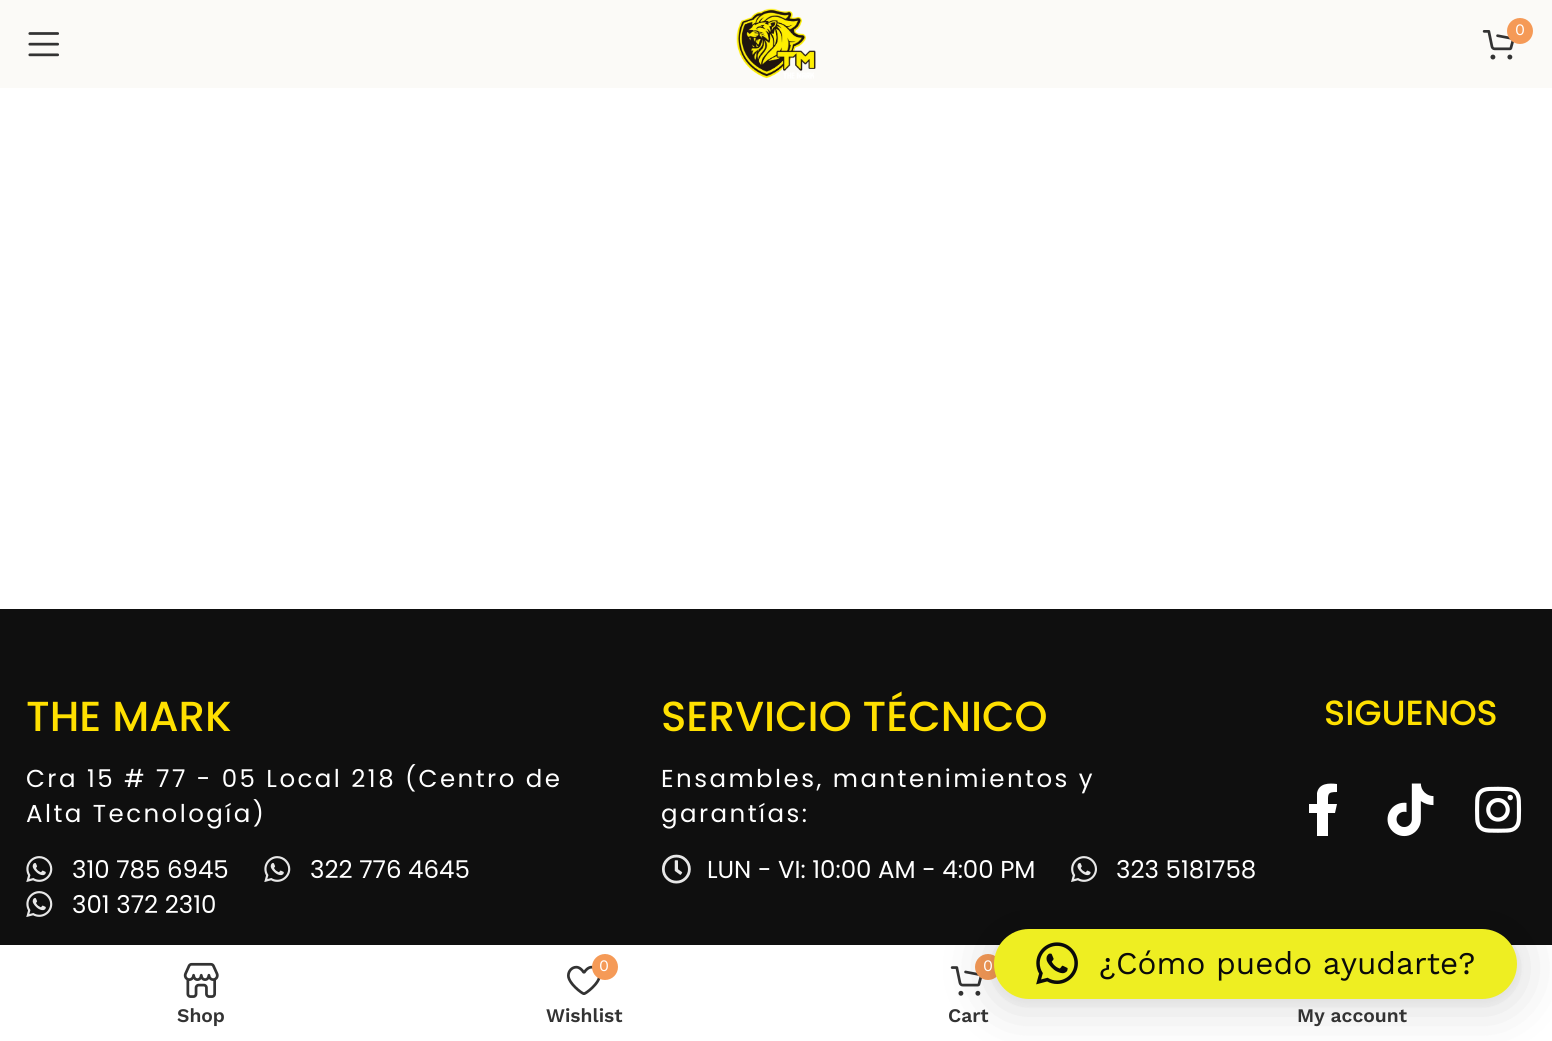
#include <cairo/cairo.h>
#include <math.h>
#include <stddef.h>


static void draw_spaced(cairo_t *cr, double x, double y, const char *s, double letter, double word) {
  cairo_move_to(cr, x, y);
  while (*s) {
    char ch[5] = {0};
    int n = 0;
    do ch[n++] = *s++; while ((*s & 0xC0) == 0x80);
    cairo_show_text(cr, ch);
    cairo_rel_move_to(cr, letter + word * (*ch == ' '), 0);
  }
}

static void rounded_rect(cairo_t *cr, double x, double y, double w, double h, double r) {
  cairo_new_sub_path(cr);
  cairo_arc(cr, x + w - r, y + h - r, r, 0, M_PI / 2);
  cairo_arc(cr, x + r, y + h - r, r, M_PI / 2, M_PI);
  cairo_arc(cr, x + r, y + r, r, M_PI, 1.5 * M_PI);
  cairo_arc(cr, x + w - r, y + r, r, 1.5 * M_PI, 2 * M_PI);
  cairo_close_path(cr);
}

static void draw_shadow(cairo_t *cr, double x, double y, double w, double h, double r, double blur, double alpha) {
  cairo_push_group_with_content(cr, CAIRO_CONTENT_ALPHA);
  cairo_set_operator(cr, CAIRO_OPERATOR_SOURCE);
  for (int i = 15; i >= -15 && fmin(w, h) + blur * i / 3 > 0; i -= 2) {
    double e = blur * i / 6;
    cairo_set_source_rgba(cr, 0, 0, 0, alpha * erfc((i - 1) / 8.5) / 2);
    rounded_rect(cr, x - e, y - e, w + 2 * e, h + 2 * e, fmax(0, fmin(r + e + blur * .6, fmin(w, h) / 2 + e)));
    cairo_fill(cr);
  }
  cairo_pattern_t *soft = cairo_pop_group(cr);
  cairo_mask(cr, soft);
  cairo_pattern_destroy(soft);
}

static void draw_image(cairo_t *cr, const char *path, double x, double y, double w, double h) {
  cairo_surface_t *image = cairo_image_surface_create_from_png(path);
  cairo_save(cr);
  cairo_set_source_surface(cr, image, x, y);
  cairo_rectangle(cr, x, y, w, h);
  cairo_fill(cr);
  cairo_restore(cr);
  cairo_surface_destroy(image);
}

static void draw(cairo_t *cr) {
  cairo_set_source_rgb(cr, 1, 1, 1);
  cairo_paint(cr);
  cairo_set_source_rgb(cr, 251 / 255.0, 250 / 255.0, 247 / 255.0);
  cairo_rectangle(cr, 0, 0, 1552, 88);
  cairo_fill(cr);
  draw_image(cr, "images/1.png", 736, 8, 80, 71);
  draw_image(cr, "images/2.png", 1482, 30, 32, 30);
  cairo_set_source_rgb(cr, 245 / 255.0, 154 / 255.0, 87 / 255.0);
  cairo_arc(cr, 1520, 31, 13, 0, 2 * M_PI);
  cairo_fill(cr);
  draw_image(cr, "images/3.png", 28, 32, 31, 25);
  cairo_set_source_rgb(cr, 15 / 255.0, 15 / 255.0, 15 / 255.0);
  cairo_rectangle(cr, 0, 609, 1552, 336);
  cairo_fill(cr);
  draw_image(cr, "images/4.png", 26, 856, 27, 26);
  draw_image(cr, "images/4.png", 264, 856, 27, 26);
  draw_image(cr, "images/4.png", 26, 891, 27, 26);
  draw_image(cr, "images/5.png", 662, 854, 29, 30);
  draw_image(cr, "images/6.png", 1071, 856, 26, 26);
  cairo_set_source_rgb(cr, 1, 1, 1);
  cairo_new_path(cr);
  cairo_move_to(cr, 1335, 813);
  cairo_line_to(cr, 1328, 813);
  cairo_line_to(cr, 1328, 836);
  cairo_line_to(cr, 1317, 836);
  cairo_line_to(cr, 1317, 813);
  cairo_line_to(cr, 1309, 813);
  cairo_line_to(cr, 1309, 804);
  cairo_line_to(cr, 1317, 804);
  cairo_line_to(cr, 1317, 793);
  cairo_curve_to(cr, 1319, 783, 1329, 783, 1337, 784);
  cairo_line_to(cr, 1337, 792);
  cairo_curve_to(cr, 1327, 792, 1328, 794, 1328, 804);
  cairo_line_to(cr, 1337, 804);
  cairo_close_path(cr);
  cairo_fill(cr);
  draw_image(cr, "images/7.png", 1387, 783, 47, 54);
  draw_image(cr, "images/8.png", 1475, 786, 47, 47);
  draw_image(cr, "images/12.png", 950, 966, 32, 30);
  cairo_set_source_rgb(cr, 245 / 255.0, 154 / 255.0, 87 / 255.0);
  cairo_arc(cr, 988, 967, 13, 0, 2 * M_PI);
  cairo_fill(cr);
  cairo_set_source_rgb(cr, 0, 0, 0);
  draw_shadow(cr, 994, 933, 523, 70, 35, 28, 0.16);
  draw_shadow(cr, 994, 931, 523, 70, 35, 5, 0.06);
  cairo_set_source_rgb(cr, 238 / 255.0, 238 / 255.0, 34 / 255.0);
  rounded_rect(cr, 994, 929, 523, 70, 35);
  cairo_fill(cr);
  draw_image(cr, "images/9.png", 1036, 942, 42, 43);
  draw_image(cr, "images/10.png", 183, 962, 36, 36);
  draw_image(cr, "images/11.png", 567, 965, 34, 30);
  cairo_set_source_rgb(cr, 245 / 255.0, 154 / 255.0, 87 / 255.0);
  cairo_arc(cr, 605, 967, 13, 0, 2 * M_PI);
  cairo_fill(cr);
  cairo_select_font_face(cr, "Work Sans", CAIRO_FONT_SLANT_NORMAL, CAIRO_FONT_WEIGHT_NORMAL);
  cairo_set_font_size(cr, 16);
  cairo_set_source_rgb(cr, 1, 1, 1);
  cairo_move_to(cr, 1515, 35);
  cairo_show_text(cr, "0");
  cairo_select_font_face(cr, "Poppins Medium", CAIRO_FONT_SLANT_NORMAL, CAIRO_FONT_WEIGHT_NORMAL);
  cairo_set_font_size(cr, 42);
  cairo_set_source_rgb(cr, 1, 224 / 255.0, 0);
  cairo_move_to(cr, 26, 731);
  cairo_show_text(cr, "THE MARK");
  cairo_select_font_face(cr, "Poppins", CAIRO_FONT_SLANT_NORMAL, CAIRO_FONT_WEIGHT_NORMAL);
  cairo_set_font_size(cr, 24.5);
  cairo_set_source_rgb(cr, 1, 1, 1);
  draw_spaced(cr, 26, 787, "Cra 15 # 77 - 05 Local 218 (Centro de", 2.45, 0);
  draw_spaced(cr, 26, 822, "Alta Tecnología)", 2.45, 0);
  cairo_move_to(cr, 72, 878);
  cairo_show_text(cr, "310 785 6945");
  cairo_move_to(cr, 310, 878);
  cairo_show_text(cr, "322 776 4645");
  cairo_move_to(cr, 72, 913);
  cairo_show_text(cr, "301 372 2310");
  cairo_select_font_face(cr, "Poppins Medium", CAIRO_FONT_SLANT_NORMAL, CAIRO_FONT_WEIGHT_NORMAL);
  cairo_set_font_size(cr, 42);
  cairo_set_source_rgb(cr, 1, 224 / 255.0, 0);
  cairo_move_to(cr, 661, 731);
  cairo_show_text(cr, "SERVICIO TÉCNICO");
  cairo_select_font_face(cr, "Poppins", CAIRO_FONT_SLANT_NORMAL, CAIRO_FONT_WEIGHT_NORMAL);
  cairo_set_font_size(cr, 24.5);
  cairo_set_source_rgb(cr, 1, 1, 1);
  draw_spaced(cr, 661, 787, "Ensambles, mantenimientos y", 2.45, 0);
  draw_spaced(cr, 661, 822, "garantías:", 2.45, 0);
  cairo_move_to(cr, 707, 878);
  cairo_show_text(cr, "LUN - VI: 10:00 AM - 4:00 PM");
  cairo_move_to(cr, 1116, 878);
  cairo_show_text(cr, "323 5181758");
  cairo_select_font_face(cr, "Poppins Medium", CAIRO_FONT_SLANT_NORMAL, CAIRO_FONT_WEIGHT_NORMAL);
  cairo_set_font_size(cr, 35);
  cairo_set_source_rgb(cr, 1, 224 / 255.0, 0);
  cairo_move_to(cr, 1324, 725);
  cairo_show_text(cr, "SIGUENOS");
  cairo_select_font_face(cr, "Work Sans", CAIRO_FONT_SLANT_NORMAL, CAIRO_FONT_WEIGHT_NORMAL);
  cairo_set_font_size(cr, 31.5);
  cairo_set_source_rgb(cr, 10 / 255.0, 10 / 255.0, 10 / 255.0);
  cairo_move_to(cr, 1099, 974);
  cairo_show_text(cr, "¿Cómo puedo ayudarte?");
  cairo_select_font_face(cr, "Work Sans SemiBold", CAIRO_FONT_SLANT_NORMAL, CAIRO_FONT_WEIGHT_NORMAL);
  cairo_set_font_size(cr, 19.25);
  cairo_set_source_rgb(cr, 51 / 255.0, 51 / 255.0, 51 / 255.0);
  cairo_move_to(cr, 177, 1022);
  cairo_show_text(cr, "Shop");
  cairo_select_font_face(cr, "Work Sans", CAIRO_FONT_SLANT_NORMAL, CAIRO_FONT_WEIGHT_NORMAL);
  cairo_set_font_size(cr, 16);
  cairo_set_source_rgb(cr, 1, 1, 1);
  cairo_move_to(cr, 599, 971);
  cairo_show_text(cr, "0");
  cairo_select_font_face(cr, "Work Sans SemiBold", CAIRO_FONT_SLANT_NORMAL, CAIRO_FONT_WEIGHT_NORMAL);
  cairo_set_font_size(cr, 19.25);
  cairo_set_source_rgb(cr, 51 / 255.0, 51 / 255.0, 51 / 255.0);
  cairo_move_to(cr, 546, 1022);
  cairo_show_text(cr, "Wishlist");
  cairo_select_font_face(cr, "Work Sans", CAIRO_FONT_SLANT_NORMAL, CAIRO_FONT_WEIGHT_NORMAL);
  cairo_set_font_size(cr, 16);
  cairo_set_source_rgb(cr, 1, 1, 1);
  cairo_move_to(cr, 983, 971);
  cairo_show_text(cr, "0");
  cairo_select_font_face(cr, "Work Sans SemiBold", CAIRO_FONT_SLANT_NORMAL, CAIRO_FONT_WEIGHT_NORMAL);
  cairo_set_font_size(cr, 19.25);
  cairo_set_source_rgb(cr, 51 / 255.0, 51 / 255.0, 51 / 255.0);
  cairo_move_to(cr, 948, 1022);
  cairo_show_text(cr, "Cart");
  cairo_move_to(cr, 1297, 1022);
  cairo_show_text(cr, "My account");
}

int main(void) {
  cairo_surface_t *surface = cairo_image_surface_create(CAIRO_FORMAT_RGB24, 1552, 1041);
  cairo_t *cr = cairo_create(surface);
  cairo_font_options_t *options = cairo_font_options_create();
  cairo_font_options_set_hint_metrics(options, CAIRO_HINT_METRICS_OFF);
  cairo_font_options_set_hint_style(options, CAIRO_HINT_STYLE_NONE);
  cairo_set_font_options(cr, options);
  cairo_set_miter_limit(cr, 4);
  draw(cr);
  cairo_surface_write_to_png(surface, "out.png");
  cairo_font_options_destroy(options);
  cairo_destroy(cr);
  cairo_surface_destroy(surface);
  return 0;
}
